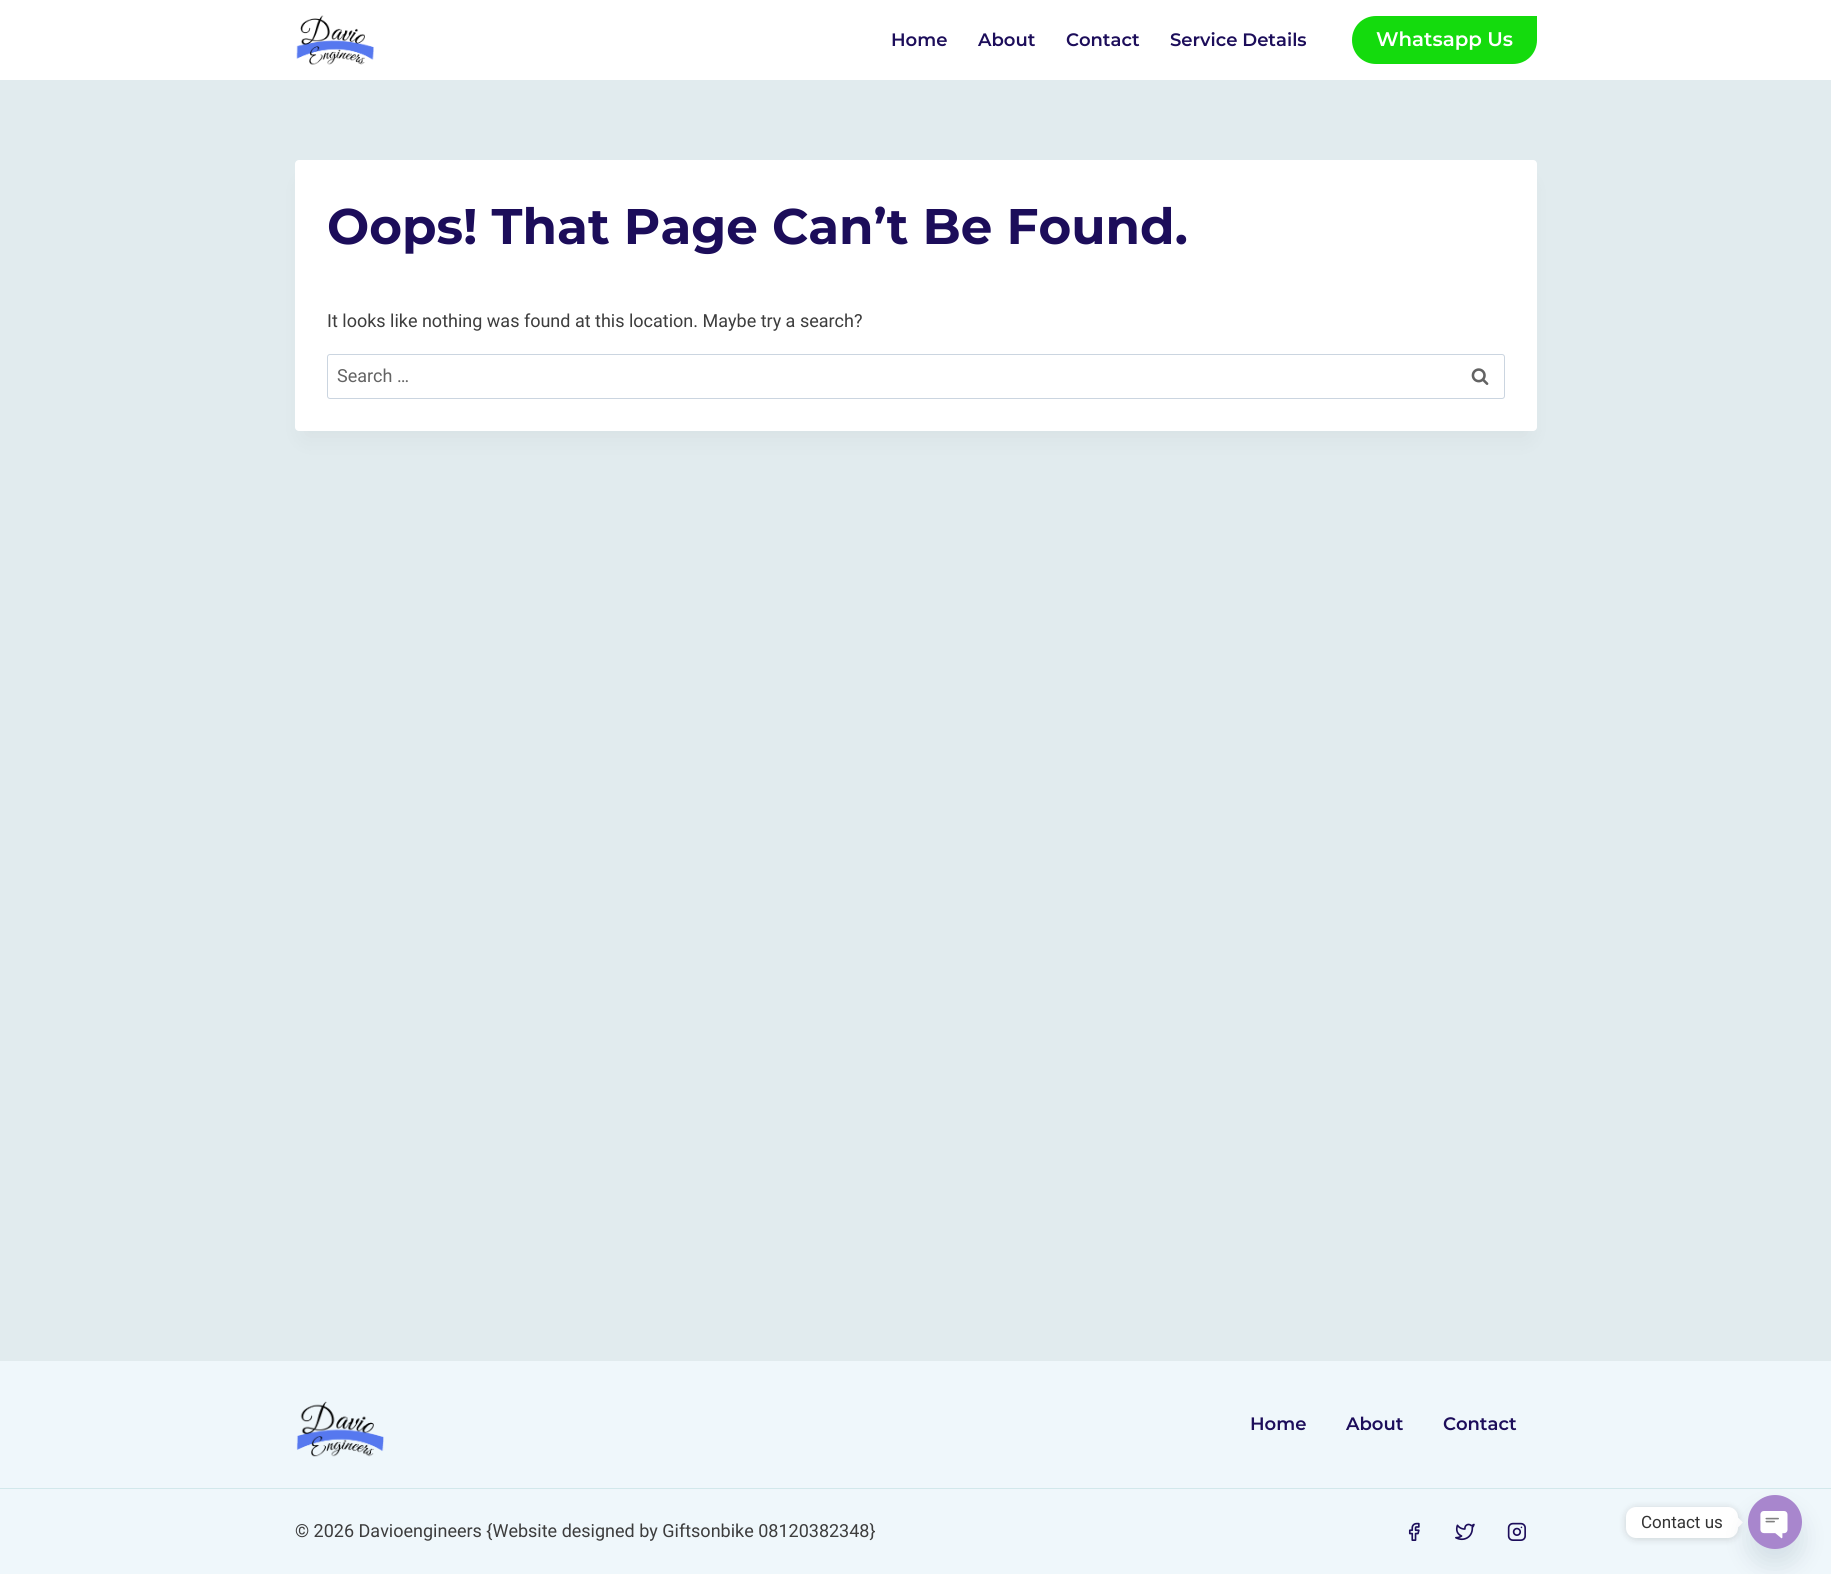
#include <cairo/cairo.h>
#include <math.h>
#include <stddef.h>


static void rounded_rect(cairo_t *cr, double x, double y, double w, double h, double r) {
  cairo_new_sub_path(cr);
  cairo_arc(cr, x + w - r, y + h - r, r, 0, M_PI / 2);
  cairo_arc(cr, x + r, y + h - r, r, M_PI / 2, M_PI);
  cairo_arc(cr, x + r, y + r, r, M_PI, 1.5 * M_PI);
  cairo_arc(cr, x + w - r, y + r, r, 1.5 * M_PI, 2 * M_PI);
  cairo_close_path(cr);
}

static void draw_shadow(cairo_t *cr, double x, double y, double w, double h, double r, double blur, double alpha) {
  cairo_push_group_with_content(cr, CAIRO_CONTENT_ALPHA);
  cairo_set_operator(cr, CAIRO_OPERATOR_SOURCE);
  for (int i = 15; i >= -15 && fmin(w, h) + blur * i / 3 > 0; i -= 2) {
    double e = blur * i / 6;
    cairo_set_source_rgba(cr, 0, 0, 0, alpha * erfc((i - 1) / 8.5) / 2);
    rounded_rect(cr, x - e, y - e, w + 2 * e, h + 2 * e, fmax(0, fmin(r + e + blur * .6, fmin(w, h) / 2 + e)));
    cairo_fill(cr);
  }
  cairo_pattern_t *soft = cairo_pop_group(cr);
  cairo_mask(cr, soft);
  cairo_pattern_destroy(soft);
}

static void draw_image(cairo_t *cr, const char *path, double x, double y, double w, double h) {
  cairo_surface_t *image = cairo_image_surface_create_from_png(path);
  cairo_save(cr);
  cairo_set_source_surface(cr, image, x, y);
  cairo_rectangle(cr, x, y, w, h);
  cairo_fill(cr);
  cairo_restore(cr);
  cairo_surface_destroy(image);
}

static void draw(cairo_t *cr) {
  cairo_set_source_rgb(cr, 225 / 255.0, 235 / 255.0, 238 / 255.0);
  cairo_paint(cr);
  cairo_set_source_rgb(cr, 1, 1, 1);
  cairo_rectangle(cr, 0, 0, 1831, 80);
  cairo_fill(cr);
  draw_image(cr, "images/1.png", 296, 15, 78, 50);
  cairo_set_source_rgb(cr, 20 / 255.0, 219 / 255.0, 13 / 255.0);
  cairo_new_path(cr);
  cairo_move_to(cr, 1376, 16);
  cairo_line_to(cr, 1537, 16);
  cairo_line_to(cr, 1537, 40);
  cairo_curve_to(cr, 1537, 53.5, 1526.5, 64, 1513, 64);
  cairo_line_to(cr, 1376, 64);
  cairo_curve_to(cr, 1362.5, 64, 1352, 53.5, 1352, 40);
  cairo_curve_to(cr, 1352, 26.5, 1362.5, 16, 1376, 16);
  cairo_close_path(cr);
  cairo_fill(cr);
  cairo_set_source_rgb(cr, 0, 0, 0);
  draw_shadow(cr, 305, 185, 1222, 251, 0, 12.5, 0.05);
  cairo_set_source_rgb(cr, 1, 1, 1);
  rounded_rect(cr, 295, 160, 1242, 271, 4);
  cairo_fill(cr);
  rounded_rect(cr, 327.5, 354.5, 1177, 44, 2.5);
  cairo_set_source_rgb(cr, 203 / 255.0, 213 / 255.0, 224 / 255.0);
  cairo_set_line_width(cr, 1);
  cairo_stroke(cr);
  draw_image(cr, "images/2.png", 1471, 368, 18, 17);
  cairo_set_source_rgb(cr, 239 / 255.0, 247 / 255.0, 251 / 255.0);
  cairo_rectangle(cr, 0, 1361, 1831, 213);
  cairo_fill(cr);
  draw_image(cr, "images/3.png", 296, 1401, 88, 56);
  cairo_set_source_rgb(cr, 210 / 255.0, 232 / 255.0, 235 / 255.0);
  cairo_rectangle(cr, 0, 1488, 1831, 1);
  cairo_fill(cr);
  draw_image(cr, "images/4.png", 1408, 1522, 12, 19);
  draw_image(cr, "images/5.png", 1455, 1523, 20, 18);
  draw_image(cr, "images/6.png", 1507, 1522, 19, 19);
  cairo_set_source_rgb(cr, 0, 0, 0);
  draw_shadow(cr, 1626, 1508, 112, 31, 10, 4, 0.15);
  cairo_set_source_rgb(cr, 1, 1, 1);
  rounded_rect(cr, 1626, 1507, 112, 31, 10);
  cairo_fill(cr);
  cairo_new_path(cr);
  cairo_move_to(cr, 1738, 1527.5);
  cairo_line_to(cr, 1738, 1517.5);
  cairo_line_to(cr, 1743, 1522.5);
  cairo_close_path(cr);
  cairo_fill(cr);
  cairo_set_source_rgb(cr, 73 / 255.0, 104 / 255.0, 126 / 255.0);
  draw_shadow(cr, 1748, 1511, 54, 54, 27, 12, 0.16);
  draw_image(cr, "images/7.png", 1748, 1495, 54, 54);
  cairo_select_font_face(cr, "Montserrat SemiBold", CAIRO_FONT_SLANT_NORMAL, CAIRO_FONT_WEIGHT_NORMAL);
  cairo_set_font_size(cr, 18);
  cairo_set_source_rgb(cr, 28 / 255.0, 13 / 255.0, 90 / 255.0);
  cairo_move_to(cr, 891, 46);
  cairo_show_text(cr, "Home");
  cairo_move_to(cr, 978, 46);
  cairo_show_text(cr, "About");
  cairo_move_to(cr, 1066, 46);
  cairo_show_text(cr, "Contact");
  cairo_move_to(cr, 1170, 46);
  cairo_show_text(cr, "Service Details");
  cairo_set_font_size(cr, 19.75);
  cairo_set_source_rgb(cr, 1, 1, 1);
  cairo_move_to(cr, 1376, 46);
  cairo_show_text(cr, "Whatsapp Us");
  cairo_select_font_face(cr, "Montserrat", CAIRO_FONT_SLANT_NORMAL, CAIRO_FONT_WEIGHT_BOLD);
  cairo_set_font_size(cr, 50);
  cairo_set_source_rgb(cr, 28 / 255.0, 13 / 255.0, 90 / 255.0);
  cairo_move_to(cr, 327, 244);
  cairo_show_text(cr, "Oops! That Page Can’t Be Found.");
  cairo_select_font_face(cr, "Roboto", CAIRO_FONT_SLANT_NORMAL, CAIRO_FONT_WEIGHT_NORMAL);
  cairo_set_font_size(cr, 18);
  cairo_set_source_rgb(cr, 61 / 255.0, 61 / 255.0, 61 / 255.0);
  cairo_move_to(cr, 327, 327);
  cairo_show_text(cr, "It looks like nothing was found at this location. Maybe try a search?");
  cairo_set_source_rgb(cr, 99 / 255.0, 99 / 255.0, 99 / 255.0);
  cairo_move_to(cr, 337, 382);
  cairo_show_text(cr, "Search …");
  cairo_select_font_face(cr, "Montserrat SemiBold", CAIRO_FONT_SLANT_NORMAL, CAIRO_FONT_WEIGHT_NORMAL);
  cairo_set_source_rgb(cr, 28 / 255.0, 13 / 255.0, 90 / 255.0);
  cairo_move_to(cr, 1250, 1430);
  cairo_show_text(cr, "Home");
  cairo_move_to(cr, 1346, 1430);
  cairo_show_text(cr, "About");
  cairo_move_to(cr, 1443, 1430);
  cairo_show_text(cr, "Contact");
  cairo_select_font_face(cr, "Roboto", CAIRO_FONT_SLANT_NORMAL, CAIRO_FONT_WEIGHT_NORMAL);
  cairo_set_source_rgb(cr, 61 / 255.0, 61 / 255.0, 61 / 255.0);
  cairo_move_to(cr, 295, 1537);
  cairo_show_text(cr, "© 2026 Davioengineers {Website designed by Giftsonbike 08120382348}");
  cairo_set_font_size(cr, 17);
  cairo_set_source_rgb(cr, 51 / 255.0, 51 / 255.0, 51 / 255.0);
  cairo_move_to(cr, 1641, 1528);
  cairo_show_text(cr, "Contact us");
}

int main(void) {
  cairo_surface_t *surface = cairo_image_surface_create(CAIRO_FORMAT_RGB24, 1831, 1574);
  cairo_t *cr = cairo_create(surface);
  cairo_font_options_t *options = cairo_font_options_create();
  cairo_font_options_set_hint_metrics(options, CAIRO_HINT_METRICS_OFF);
  cairo_font_options_set_hint_style(options, CAIRO_HINT_STYLE_NONE);
  cairo_set_font_options(cr, options);
  cairo_set_miter_limit(cr, 4);
  draw(cr);
  cairo_surface_write_to_png(surface, "out.png");
  cairo_font_options_destroy(options);
  cairo_destroy(cr);
  cairo_surface_destroy(surface);
  return 0;
}
